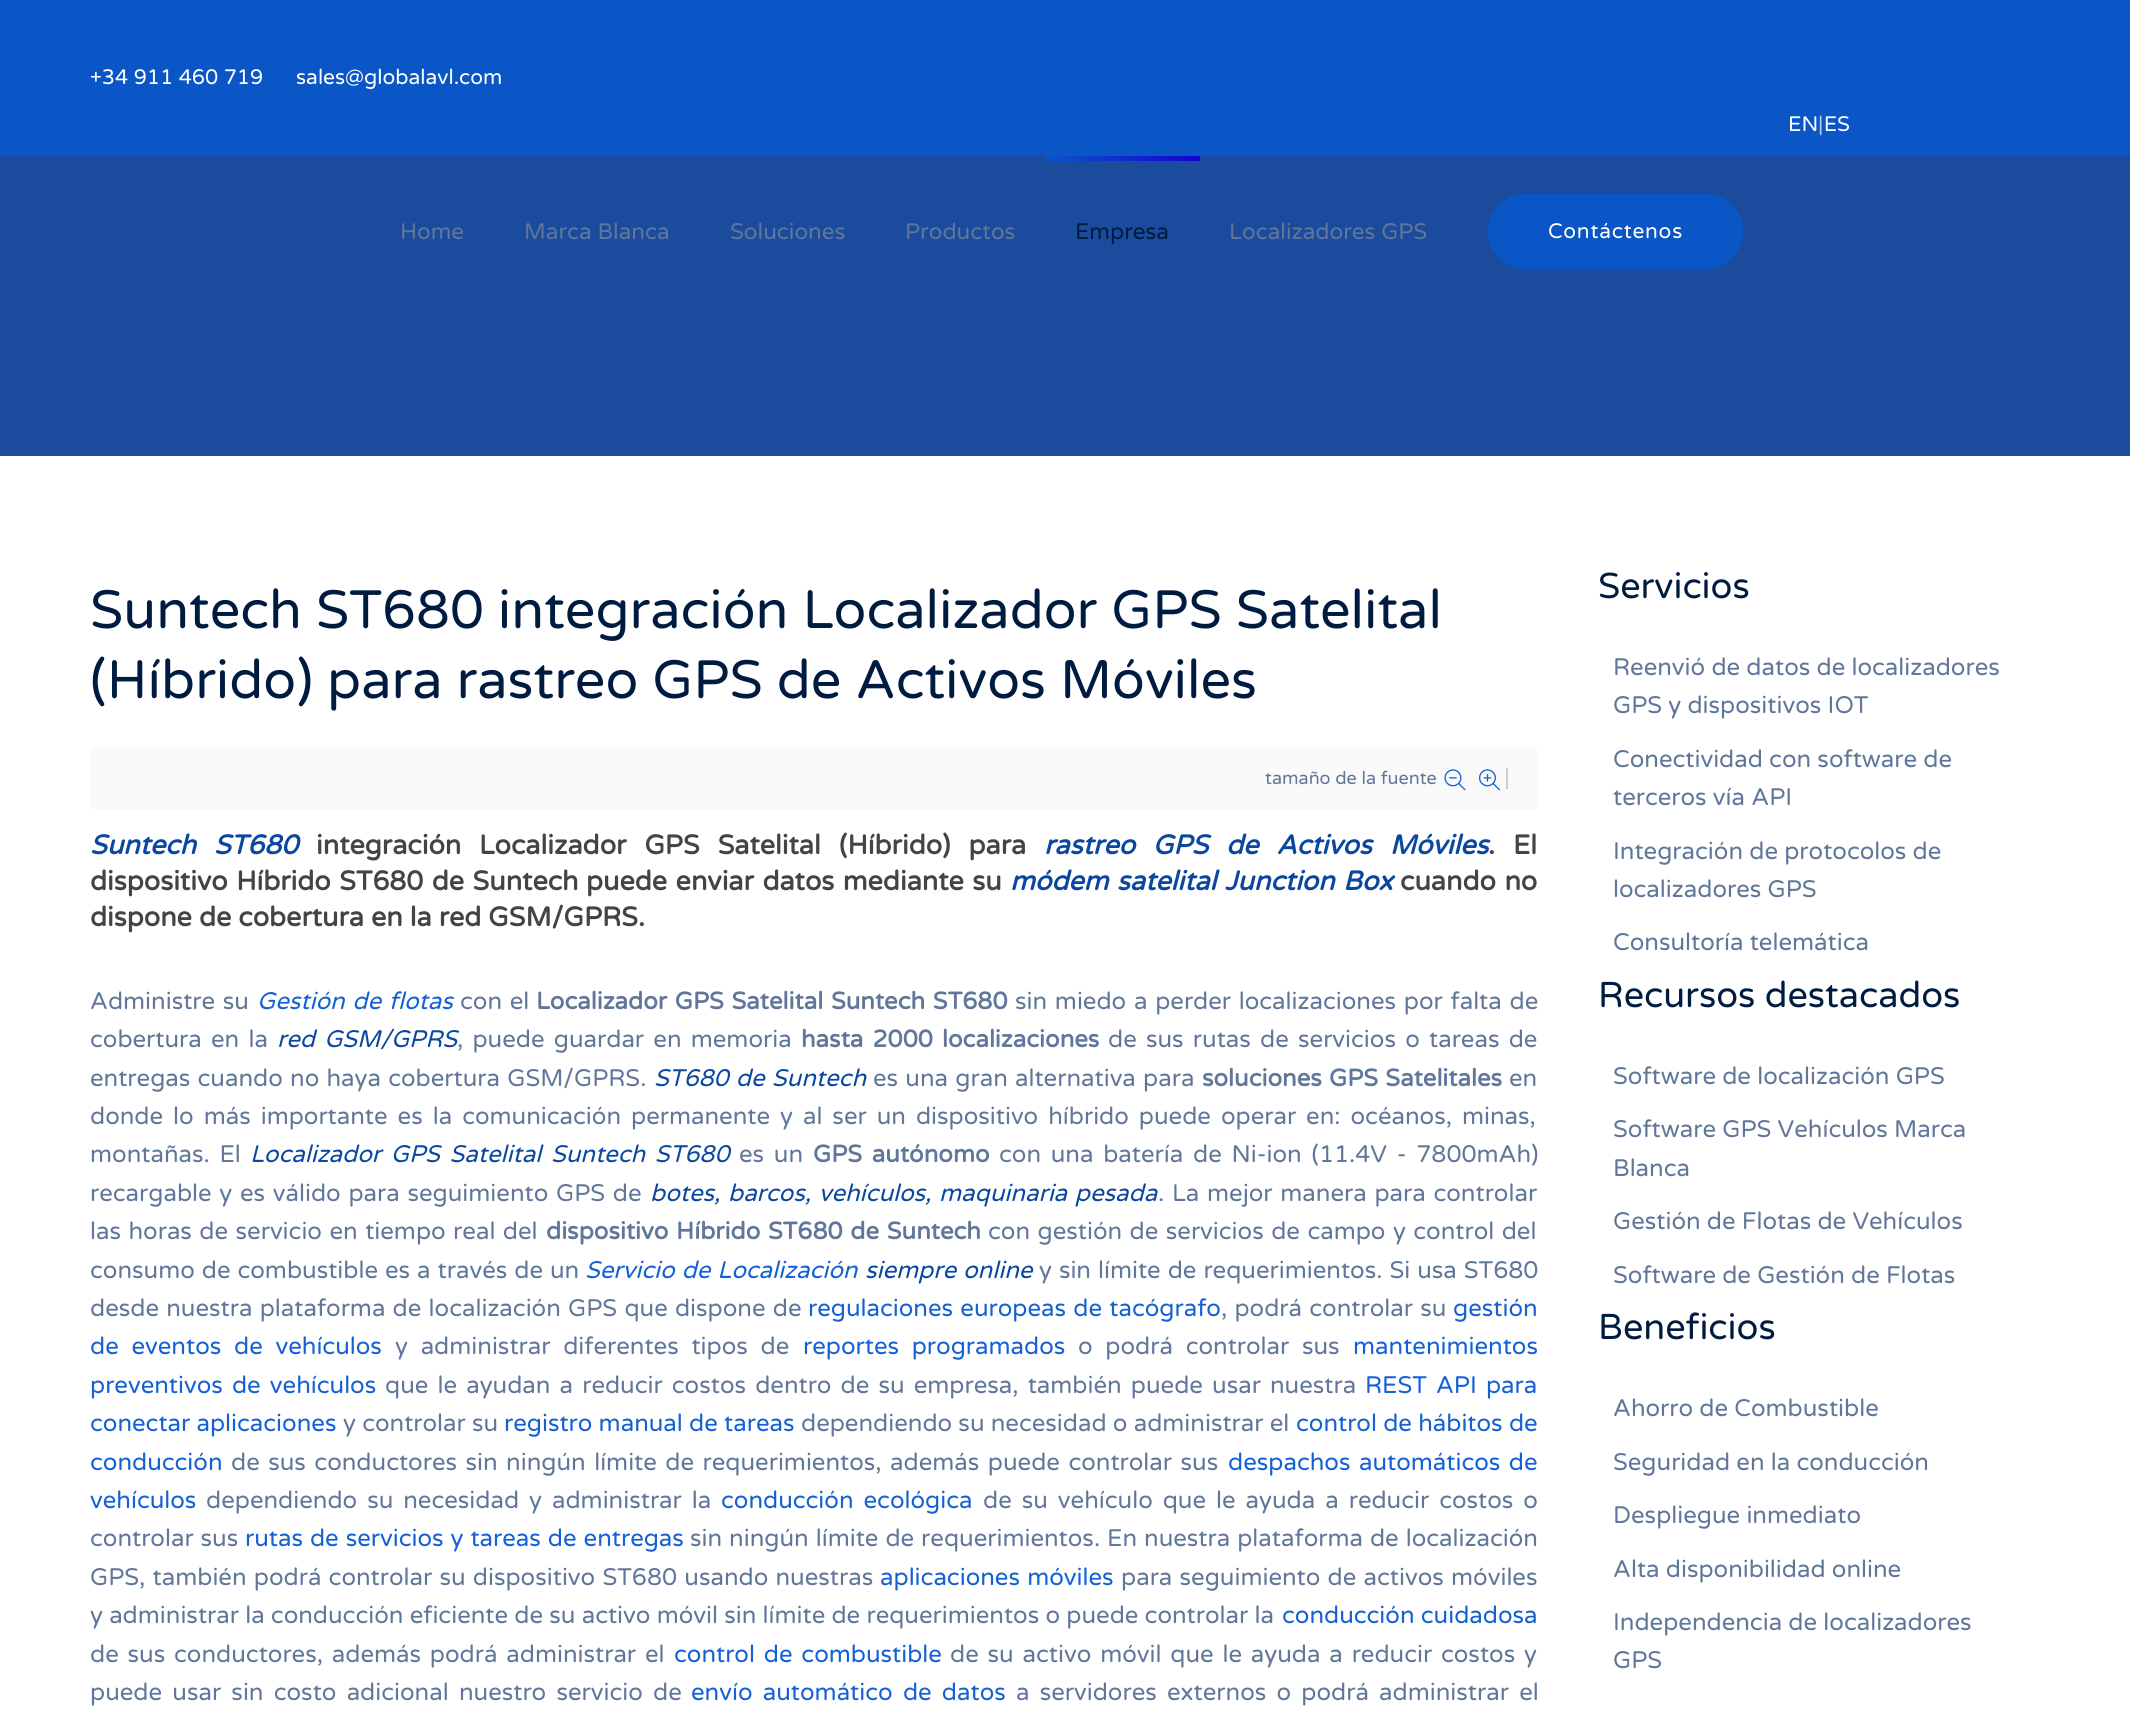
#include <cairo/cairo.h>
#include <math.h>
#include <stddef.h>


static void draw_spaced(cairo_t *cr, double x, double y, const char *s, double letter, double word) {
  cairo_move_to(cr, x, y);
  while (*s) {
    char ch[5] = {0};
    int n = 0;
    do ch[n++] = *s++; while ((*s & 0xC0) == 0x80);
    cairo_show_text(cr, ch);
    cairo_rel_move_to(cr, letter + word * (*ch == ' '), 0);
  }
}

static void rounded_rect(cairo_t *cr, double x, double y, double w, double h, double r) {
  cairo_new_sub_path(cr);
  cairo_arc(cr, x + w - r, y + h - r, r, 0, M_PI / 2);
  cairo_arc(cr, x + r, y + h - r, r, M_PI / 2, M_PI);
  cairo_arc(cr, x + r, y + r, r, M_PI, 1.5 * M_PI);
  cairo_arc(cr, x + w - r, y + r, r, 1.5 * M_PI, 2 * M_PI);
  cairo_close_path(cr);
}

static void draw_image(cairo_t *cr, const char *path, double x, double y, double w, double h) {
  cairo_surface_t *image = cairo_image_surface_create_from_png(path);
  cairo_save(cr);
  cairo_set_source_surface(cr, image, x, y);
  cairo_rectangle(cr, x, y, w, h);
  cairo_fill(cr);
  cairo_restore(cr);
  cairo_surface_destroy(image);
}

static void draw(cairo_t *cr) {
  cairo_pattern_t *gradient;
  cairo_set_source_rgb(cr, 1, 1, 1);
  cairo_paint(cr);
  cairo_set_source_rgb(cr, 10 / 255.0, 86 / 255.0, 199 / 255.0);
  cairo_rectangle(cr, 0, 0, 2130, 156);
  cairo_fill(cr);
  cairo_set_source_rgb(cr, 26 / 255.0, 75 / 255.0, 156 / 255.0);
  cairo_rectangle(cr, 0, 156, 2130, 300);
  cairo_fill(cr);
  gradient = cairo_pattern_create_linear(1083, 198, 1163, 119);
  cairo_pattern_add_color_stop_rgba(gradient, 0, 10 / 255.0, 86 / 255.0, 199 / 255.0, 1);
  cairo_pattern_add_color_stop_rgba(gradient, 1, 20 / 255.0, 0, 209 / 255.0, 1);
  cairo_set_source(cr, gradient);
  cairo_pattern_destroy(gradient);
  cairo_rectangle(cr, 1046, 156, 154, 5);
  cairo_fill(cr);
  cairo_set_source_rgb(cr, 10 / 255.0, 86 / 255.0, 199 / 255.0);
  rounded_rect(cr, 1488, 194, 255, 75, 37.5);
  cairo_fill(cr);
  cairo_set_source_rgb(cr, 250 / 255.0, 250 / 255.0, 250 / 255.0);
  rounded_rect(cr, 90, 747, 1448, 63, 6);
  cairo_fill(cr);
  draw_image(cr, "images/1.png", 1444, 769, 22, 22);
  draw_image(cr, "images/2.png", 1478, 769, 22, 22);
  cairo_set_source_rgb(cr, 204 / 255.0, 204 / 255.0, 204 / 255.0);
  cairo_rectangle(cr, 1506, 768, 2, 21);
  cairo_fill(cr);
  cairo_select_font_face(cr, "Varela Round", CAIRO_FONT_SLANT_NORMAL, CAIRO_FONT_WEIGHT_NORMAL);
  cairo_set_font_size(cr, 21);
  cairo_set_source_rgb(cr, 1, 1, 1);
  cairo_move_to(cr, 90, 84);
  cairo_show_text(cr, "+34 911 460 719");
  cairo_move_to(cr, 296, 84);
  cairo_show_text(cr, "sales@globalavl.com");
  cairo_move_to(cr, 1788, 131);
  cairo_show_text(cr, "EN ES");
  cairo_set_source_rgb(cr, 182 / 255.0, 204 / 255.0, 238 / 255.0);
  cairo_move_to(cr, 1818, 131);
  cairo_show_text(cr, "|");
  cairo_set_font_size(cr, 22.5);
  cairo_set_source_rgb(cr, 96 / 255.0, 118 / 255.0, 154 / 255.0);
  cairo_move_to(cr, 400, 239);
  cairo_show_text(cr, "Home");
  cairo_move_to(cr, 524, 239);
  cairo_show_text(cr, "Marca Blanca");
  cairo_move_to(cr, 730, 239);
  cairo_show_text(cr, "Soluciones");
  cairo_move_to(cr, 905, 239);
  cairo_show_text(cr, "Productos");
  cairo_set_source_rgb(cr, 0, 27 / 255.0, 64 / 255.0);
  cairo_move_to(cr, 1075, 239);
  cairo_show_text(cr, "Empresa");
  cairo_set_source_rgb(cr, 96 / 255.0, 118 / 255.0, 154 / 255.0);
  cairo_move_to(cr, 1229, 239);
  cairo_show_text(cr, "Localizadores GPS");
  cairo_set_font_size(cr, 21);
  cairo_set_source_rgb(cr, 1, 1, 1);
  draw_spaced(cr, 1548, 238, "Contáctenos", 0.75, 0);
  cairo_set_font_size(cr, 54);
  cairo_set_source_rgb(cr, 0, 27 / 255.0, 64 / 255.0);
  cairo_move_to(cr, 90, 628);
  cairo_show_text(cr, "Suntech ST680 integración Localizador GPS Satelital");
  cairo_move_to(cr, 90, 698);
  cairo_show_text(cr, "(Híbrido) para rastreo GPS de Activos Móviles");
  cairo_set_font_size(cr, 18);
  cairo_set_source_rgb(cr, 96 / 255.0, 118 / 255.0, 154 / 255.0);
  cairo_move_to(cr, 1265, 784);
  cairo_show_text(cr, "tamaño de la fuente");
  cairo_select_font_face(cr, "Varela Round", CAIRO_FONT_SLANT_ITALIC, CAIRO_FONT_WEIGHT_BOLD);
  cairo_set_font_size(cr, 27);
  cairo_set_source_rgb(cr, 10 / 255.0, 71 / 255.0, 160 / 255.0);
  draw_spaced(cr, 90, 854, "Suntech ST680", 0, 11);
  cairo_select_font_face(cr, "Varela Round", CAIRO_FONT_SLANT_NORMAL, CAIRO_FONT_WEIGHT_BOLD);
  cairo_set_source_rgb(cr, 68 / 255.0, 68 / 255.0, 68 / 255.0);
  cairo_move_to(cr, 316, 854);
  cairo_show_text(cr, "integración");
  draw_spaced(cr, 479, 854, "Localizador GPS Satelital", 0, 11);
  draw_spaced(cr, 839, 854, "(Híbrido) para", 0, 11);
  cairo_select_font_face(cr, "Varela Round", CAIRO_FONT_SLANT_ITALIC, CAIRO_FONT_WEIGHT_BOLD);
  cairo_set_source_rgb(cr, 10 / 255.0, 71 / 255.0, 160 / 255.0);
  draw_spaced(cr, 1044, 854, "rastreo GPS de Activos Móviles", 0, 11);
  cairo_select_font_face(cr, "Varela Round", CAIRO_FONT_SLANT_NORMAL, CAIRO_FONT_WEIGHT_BOLD);
  cairo_set_source_rgb(cr, 68 / 255.0, 68 / 255.0, 68 / 255.0);
  draw_spaced(cr, 1488, 854, ". El", 0, 11);
  draw_spaced(cr, 90, 890, "dispositivo Híbrido ST680 de Suntech", 0, 1.5);
  draw_spaced(cr, 586, 890, "puede enviar datos mediante su", 0, 1.5);
  cairo_select_font_face(cr, "Varela Round", CAIRO_FONT_SLANT_ITALIC, CAIRO_FONT_WEIGHT_BOLD);
  cairo_set_source_rgb(cr, 10 / 255.0, 71 / 255.0, 160 / 255.0);
  draw_spaced(cr, 1010, 890, "módem satelital Junction Box", 0, 1.5);
  cairo_select_font_face(cr, "Varela Round", CAIRO_FONT_SLANT_NORMAL, CAIRO_FONT_WEIGHT_BOLD);
  cairo_set_source_rgb(cr, 68 / 255.0, 68 / 255.0, 68 / 255.0);
  draw_spaced(cr, 1400, 890, "cuando no", 0, 1.5);
  cairo_move_to(cr, 90, 926);
  cairo_show_text(cr, "dispone de cobertura en la red GSM/GPRS.");
  cairo_select_font_face(cr, "Varela Round", CAIRO_FONT_SLANT_NORMAL, CAIRO_FONT_WEIGHT_NORMAL);
  cairo_set_font_size(cr, 24);
  cairo_set_source_rgb(cr, 96 / 255.0, 118 / 255.0, 154 / 255.0);
  draw_spaced(cr, 90, 1009, "Administre su", 0, 1.5);
  cairo_select_font_face(cr, "Varela Round", CAIRO_FONT_SLANT_ITALIC, CAIRO_FONT_WEIGHT_NORMAL);
  cairo_set_source_rgb(cr, 19 / 255.0, 97 / 255.0, 213 / 255.0);
  draw_spaced(cr, 257, 1009, "Gestión de flotas", 0, 1.5);
  cairo_select_font_face(cr, "Varela Round", CAIRO_FONT_SLANT_NORMAL, CAIRO_FONT_WEIGHT_NORMAL);
  cairo_set_source_rgb(cr, 96 / 255.0, 118 / 255.0, 154 / 255.0);
  draw_spaced(cr, 460, 1009, "con el", 0, 1.5);
  cairo_select_font_face(cr, "Varela Round", CAIRO_FONT_SLANT_NORMAL, CAIRO_FONT_WEIGHT_BOLD);
  draw_spaced(cr, 536, 1009, "Localizador GPS Satelital Suntech ST680", 0, 1.5);
  cairo_select_font_face(cr, "Varela Round", CAIRO_FONT_SLANT_NORMAL, CAIRO_FONT_WEIGHT_NORMAL);
  draw_spaced(cr, 1015, 1009, "sin miedo a perder localizaciones por falta de", 0, 1.5);
  draw_spaced(cr, 90, 1047, "cobertura en la", 0, 3);
  cairo_select_font_face(cr, "Varela Round", CAIRO_FONT_SLANT_ITALIC, CAIRO_FONT_WEIGHT_NORMAL);
  cairo_set_source_rgb(cr, 10 / 255.0, 71 / 255.0, 160 / 255.0);
  draw_spaced(cr, 277, 1047, "red GSM/GPRS", 0, 3);
  cairo_select_font_face(cr, "Varela Round", CAIRO_FONT_SLANT_NORMAL, CAIRO_FONT_WEIGHT_NORMAL);
  cairo_set_source_rgb(cr, 96 / 255.0, 118 / 255.0, 154 / 255.0);
  draw_spaced(cr, 457, 1047, ", puede guardar en memoria", 0, 3);
  cairo_select_font_face(cr, "Varela Round", CAIRO_FONT_SLANT_NORMAL, CAIRO_FONT_WEIGHT_BOLD);
  draw_spaced(cr, 801, 1047, "hasta 2000 localizaciones", 0, 3);
  cairo_select_font_face(cr, "Varela Round", CAIRO_FONT_SLANT_NORMAL, CAIRO_FONT_WEIGHT_NORMAL);
  draw_spaced(cr, 1108, 1047, "de sus rutas de servicios o tareas de", 0, 3);
  draw_spaced(cr, 90, 1086, "entregas cuando no haya cobertura GSM/GPRS.", 0, 1);
  cairo_select_font_face(cr, "Varela Round", CAIRO_FONT_SLANT_ITALIC, CAIRO_FONT_WEIGHT_NORMAL);
  cairo_set_source_rgb(cr, 10 / 255.0, 71 / 255.0, 160 / 255.0);
  draw_spaced(cr, 654, 1086, "ST680 de Suntech", 0, 1);
  cairo_select_font_face(cr, "Varela Round", CAIRO_FONT_SLANT_NORMAL, CAIRO_FONT_WEIGHT_NORMAL);
  cairo_set_source_rgb(cr, 96 / 255.0, 118 / 255.0, 154 / 255.0);
  draw_spaced(cr, 873, 1086, "es una gran alternativa para", 0, 1);
  cairo_select_font_face(cr, "Varela Round", CAIRO_FONT_SLANT_NORMAL, CAIRO_FONT_WEIGHT_BOLD);
  draw_spaced(cr, 1202, 1086, "soluciones GPS Satelitales", 0, 1);
  cairo_select_font_face(cr, "Varela Round", CAIRO_FONT_SLANT_NORMAL, CAIRO_FONT_WEIGHT_NORMAL);
  cairo_move_to(cr, 1509, 1086);
  cairo_show_text(cr, "en");
  draw_spaced(cr, 90, 1124, "donde lo más importante es la comunicación permanente y al ser un dispositivo híbrido puede operar en: océanos, minas,", 0, 3.75);
  draw_spaced(cr, 90, 1162, "montañas. El", 0, 3.5);
  cairo_select_font_face(cr, "Varela Round", CAIRO_FONT_SLANT_ITALIC, CAIRO_FONT_WEIGHT_NORMAL);
  cairo_set_source_rgb(cr, 10 / 255.0, 71 / 255.0, 160 / 255.0);
  draw_spaced(cr, 250, 1162, "Localizador GPS Satelital Suntech ST680", 0, 3.5);
  cairo_select_font_face(cr, "Varela Round", CAIRO_FONT_SLANT_NORMAL, CAIRO_FONT_WEIGHT_NORMAL);
  cairo_set_source_rgb(cr, 96 / 255.0, 118 / 255.0, 154 / 255.0);
  draw_spaced(cr, 739, 1162, "es un", 0, 3.5);
  cairo_select_font_face(cr, "Varela Round", CAIRO_FONT_SLANT_NORMAL, CAIRO_FONT_WEIGHT_BOLD);
  draw_spaced(cr, 813, 1162, "GPS autónomo", 0, 3.5);
  cairo_select_font_face(cr, "Varela Round", CAIRO_FONT_SLANT_NORMAL, CAIRO_FONT_WEIGHT_NORMAL);
  draw_spaced(cr, 999, 1162, "con una batería de Ni-ion (11.4V - 7800mAh)", 0, 3.5);
  draw_spaced(cr, 90, 1201, "recargable y es válido para seguimiento GPS de", 0, 1.5);
  cairo_select_font_face(cr, "Varela Round", CAIRO_FONT_SLANT_ITALIC, CAIRO_FONT_WEIGHT_NORMAL);
  cairo_set_source_rgb(cr, 10 / 255.0, 71 / 255.0, 160 / 255.0);
  draw_spaced(cr, 650, 1201, "botes, barcos, vehículos, maquinaria pesada", 0, 1.5);
  cairo_select_font_face(cr, "Varela Round", CAIRO_FONT_SLANT_NORMAL, CAIRO_FONT_WEIGHT_NORMAL);
  cairo_set_source_rgb(cr, 96 / 255.0, 118 / 255.0, 154 / 255.0);
  draw_spaced(cr, 1158, 1201, ". La mejor manera para controlar", 0, 1.5);
  draw_spaced(cr, 90, 1239, "las horas de servicio en tiempo real del", 0, 1.25);
  cairo_select_font_face(cr, "Varela Round", CAIRO_FONT_SLANT_NORMAL, CAIRO_FONT_WEIGHT_BOLD);
  draw_spaced(cr, 546, 1239, "dispositivo Híbrido ST680 de Suntech", 0, 1.5);
  cairo_select_font_face(cr, "Varela Round", CAIRO_FONT_SLANT_NORMAL, CAIRO_FONT_WEIGHT_NORMAL);
  draw_spaced(cr, 988, 1239, "con gestión de servicios de campo y control del", 0, 1.25);
  draw_spaced(cr, 90, 1278, "consumo de combustible es a través de un", 0, 0.75);
  cairo_select_font_face(cr, "Varela Round", CAIRO_FONT_SLANT_ITALIC, CAIRO_FONT_WEIGHT_NORMAL);
  cairo_set_source_rgb(cr, 19 / 255.0, 97 / 255.0, 213 / 255.0);
  draw_spaced(cr, 585, 1278, "Servicio de Localización", 0, 0.75);
  cairo_set_source_rgb(cr, 10 / 255.0, 71 / 255.0, 160 / 255.0);
  draw_spaced(cr, 865, 1278, "siempre online", 0, 0.75);
  cairo_select_font_face(cr, "Varela Round", CAIRO_FONT_SLANT_NORMAL, CAIRO_FONT_WEIGHT_NORMAL);
  cairo_set_source_rgb(cr, 96 / 255.0, 118 / 255.0, 154 / 255.0);
  draw_spaced(cr, 1039, 1278, "y sin límite de requerimientos. Si usa ST680", 0, 0.75);
  draw_spaced(cr, 90, 1316, "desde nuestra plataforma de localización GPS que dispone de", 0, 1);
  cairo_set_source_rgb(cr, 19 / 255.0, 97 / 255.0, 213 / 255.0);
  draw_spaced(cr, 808, 1316, "regulaciones europeas de tacógrafo", 0, 1);
  cairo_set_source_rgb(cr, 96 / 255.0, 118 / 255.0, 154 / 255.0);
  draw_spaced(cr, 1221, 1316, ", podrá controlar su", 0, 1);
  cairo_set_source_rgb(cr, 19 / 255.0, 97 / 255.0, 213 / 255.0);
  cairo_move_to(cr, 1453, 1316);
  cairo_show_text(cr, "gestión");
  draw_spaced(cr, 90, 1354, "de eventos de vehículos", 0, 6.5);
  cairo_set_source_rgb(cr, 96 / 255.0, 118 / 255.0, 154 / 255.0);
  draw_spaced(cr, 395, 1354, "y administrar diferentes tipos de", 0, 6.5);
  cairo_set_source_rgb(cr, 19 / 255.0, 97 / 255.0, 213 / 255.0);
  draw_spaced(cr, 803, 1354, "reportes programados", 0, 6.5);
  cairo_set_source_rgb(cr, 96 / 255.0, 118 / 255.0, 154 / 255.0);
  draw_spaced(cr, 1078, 1354, "o podrá controlar sus", 0, 6.5);
  cairo_set_source_rgb(cr, 19 / 255.0, 97 / 255.0, 213 / 255.0);
  cairo_move_to(cr, 1353, 1354);
  cairo_show_text(cr, "mantenimientos");
  draw_spaced(cr, 90, 1393, "preventivos de vehículos", 0, 2.9);
  cairo_set_source_rgb(cr, 96 / 255.0, 118 / 255.0, 154 / 255.0);
  draw_spaced(cr, 385, 1393, "que le ayudan a reducir costos dentro de su empresa, también puede usar nuestra", 0, 2.9);
  cairo_set_source_rgb(cr, 19 / 255.0, 97 / 255.0, 213 / 255.0);
  draw_spaced(cr, 1365, 1393, "REST API para", 0, 2.9);
  cairo_move_to(cr, 90, 1431);
  cairo_show_text(cr, "conectar aplicaciones");
  cairo_set_source_rgb(cr, 96 / 255.0, 118 / 255.0, 154 / 255.0);
  cairo_move_to(cr, 343, 1431);
  cairo_show_text(cr, "y controlar su");
  cairo_set_source_rgb(cr, 19 / 255.0, 97 / 255.0, 213 / 255.0);
  cairo_move_to(cr, 504, 1431);
  cairo_show_text(cr, "registro manual de tareas");
  cairo_set_source_rgb(cr, 96 / 255.0, 118 / 255.0, 154 / 255.0);
  cairo_move_to(cr, 801, 1431);
  cairo_show_text(cr, "dependiendo su necesidad o administrar el");
  cairo_set_source_rgb(cr, 19 / 255.0, 97 / 255.0, 213 / 255.0);
  cairo_move_to(cr, 1296, 1431);
  cairo_show_text(cr, "control de hábitos de");
  cairo_move_to(cr, 90, 1470);
  cairo_show_text(cr, "conducción");
  cairo_set_source_rgb(cr, 96 / 255.0, 118 / 255.0, 154 / 255.0);
  draw_spaced(cr, 231, 1470, "de sus conductores sin ningún límite de requerimientos, además puede controlar sus", 0, 2.25);
  cairo_set_source_rgb(cr, 19 / 255.0, 97 / 255.0, 213 / 255.0);
  draw_spaced(cr, 1228, 1470, "despachos automáticos de", 0, 2.25);
  cairo_move_to(cr, 90, 1508);
  cairo_show_text(cr, "vehículos");
  cairo_set_source_rgb(cr, 96 / 255.0, 118 / 255.0, 154 / 255.0);
  draw_spaced(cr, 206, 1508, "dependiendo su necesidad y administrar la", 0, 3.75);
  cairo_set_source_rgb(cr, 19 / 255.0, 97 / 255.0, 213 / 255.0);
  draw_spaced(cr, 721, 1508, "conducción ecológica", 0, 3.75);
  cairo_set_source_rgb(cr, 96 / 255.0, 118 / 255.0, 154 / 255.0);
  draw_spaced(cr, 983, 1508, "de su vehículo que le ayuda a reducir costos o", 0, 3.75);
  draw_spaced(cr, 90, 1546, "controlar sus", 0, 0.75);
  cairo_set_source_rgb(cr, 19 / 255.0, 97 / 255.0, 213 / 255.0);
  draw_spaced(cr, 245, 1546, "rutas de servicios y tareas de entregas", 0, 0.75);
  cairo_set_source_rgb(cr, 96 / 255.0, 118 / 255.0, 154 / 255.0);
  draw_spaced(cr, 690, 1546, "sin ningún límite de requerimientos. En nuestra plataforma de localización", 0, 0.75);
  draw_spaced(cr, 90, 1585, "GPS, también podrá controlar su dispositivo ST680 usando nuestras", 0, 1);
  cairo_set_source_rgb(cr, 19 / 255.0, 97 / 255.0, 213 / 255.0);
  draw_spaced(cr, 880, 1585, "aplicaciones móviles", 0, 1);
  cairo_set_source_rgb(cr, 96 / 255.0, 118 / 255.0, 154 / 255.0);
  draw_spaced(cr, 1121, 1585, "para seguimiento de activos móviles", 0, 1);
  cairo_move_to(cr, 90, 1623);
  cairo_show_text(cr, "y administrar la conducción eficiente de su activo móvil sin límite de requerimientos o puede controlar la");
  cairo_set_source_rgb(cr, 19 / 255.0, 97 / 255.0, 213 / 255.0);
  cairo_move_to(cr, 1282, 1623);
  cairo_show_text(cr, "conducción cuidadosa");
  cairo_set_source_rgb(cr, 96 / 255.0, 118 / 255.0, 154 / 255.0);
  draw_spaced(cr, 90, 1662, "de sus conductores, además podrá administrar el", 0, 2.6);
  cairo_set_source_rgb(cr, 19 / 255.0, 97 / 255.0, 213 / 255.0);
  draw_spaced(cr, 674, 1662, "control de combustible", 0, 2.6);
  cairo_set_source_rgb(cr, 96 / 255.0, 118 / 255.0, 154 / 255.0);
  draw_spaced(cr, 950, 1662, "de su activo móvil que le ayuda a reducir costos y", 0, 2.6);
  draw_spaced(cr, 90, 1700, "puede usar sin costo adicional nuestro servicio de", 0, 4);
  cairo_set_source_rgb(cr, 19 / 255.0, 97 / 255.0, 213 / 255.0);
  draw_spaced(cr, 691, 1700, "envío automático de datos", 0, 4);
  cairo_set_source_rgb(cr, 96 / 255.0, 118 / 255.0, 154 / 255.0);
  draw_spaced(cr, 1016, 1700, "a servidores externos o podrá administrar el", 0, 4);
  cairo_set_font_size(cr, 36);
  cairo_set_source_rgb(cr, 0, 27 / 255.0, 64 / 255.0);
  cairo_move_to(cr, 1598, 598);
  cairo_show_text(cr, "Servicios");
  cairo_set_font_size(cr, 24);
  cairo_set_source_rgb(cr, 96 / 255.0, 118 / 255.0, 154 / 255.0);
  cairo_move_to(cr, 1613, 675);
  cairo_show_text(cr, "Reenvió de datos de localizadores");
  cairo_move_to(cr, 1613, 713);
  cairo_show_text(cr, "GPS y dispositivos IOT");
  cairo_move_to(cr, 1613, 767);
  cairo_show_text(cr, "Conectividad con software de");
  cairo_move_to(cr, 1613, 805);
  cairo_show_text(cr, "terceros vía API");
  cairo_move_to(cr, 1613, 859);
  cairo_show_text(cr, "Integración de protocolos de");
  cairo_move_to(cr, 1613, 897);
  cairo_show_text(cr, "localizadores GPS");
  cairo_move_to(cr, 1613, 950);
  cairo_show_text(cr, "Consultoría telemática");
  cairo_set_font_size(cr, 36);
  cairo_set_source_rgb(cr, 0, 27 / 255.0, 64 / 255.0);
  cairo_move_to(cr, 1598, 1007);
  cairo_show_text(cr, "Recursos destacados");
  cairo_set_font_size(cr, 24);
  cairo_set_source_rgb(cr, 96 / 255.0, 118 / 255.0, 154 / 255.0);
  cairo_move_to(cr, 1613, 1084);
  cairo_show_text(cr, "Software de localización GPS");
  cairo_move_to(cr, 1613, 1137);
  cairo_show_text(cr, "Software GPS Vehículos Marca");
  cairo_move_to(cr, 1613, 1176);
  cairo_show_text(cr, "Blanca");
  cairo_move_to(cr, 1613, 1229);
  cairo_show_text(cr, "Gestión de Flotas de Vehículos");
  cairo_move_to(cr, 1613, 1283);
  cairo_show_text(cr, "Software de Gestión de Flotas");
  cairo_set_font_size(cr, 36);
  cairo_set_source_rgb(cr, 0, 27 / 255.0, 64 / 255.0);
  cairo_move_to(cr, 1598, 1339);
  cairo_show_text(cr, "Beneficios");
  cairo_set_font_size(cr, 24);
  cairo_set_source_rgb(cr, 96 / 255.0, 118 / 255.0, 154 / 255.0);
  cairo_move_to(cr, 1613, 1416);
  cairo_show_text(cr, "Ahorro de Combustible");
  cairo_move_to(cr, 1613, 1470);
  cairo_show_text(cr, "Seguridad en la conducción");
  cairo_move_to(cr, 1613, 1523);
  cairo_show_text(cr, "Despliegue inmediato");
  cairo_move_to(cr, 1613, 1577);
  cairo_show_text(cr, "Alta disponibilidad online");
  cairo_move_to(cr, 1613, 1630);
  cairo_show_text(cr, "Independencia de localizadores");
  cairo_move_to(cr, 1613, 1668);
  cairo_show_text(cr, "GPS");
}

int main(void) {
  cairo_surface_t *surface = cairo_image_surface_create(CAIRO_FORMAT_RGB24, 2130, 1725);
  cairo_t *cr = cairo_create(surface);
  cairo_font_options_t *options = cairo_font_options_create();
  cairo_font_options_set_hint_metrics(options, CAIRO_HINT_METRICS_OFF);
  cairo_font_options_set_hint_style(options, CAIRO_HINT_STYLE_NONE);
  cairo_set_font_options(cr, options);
  cairo_set_miter_limit(cr, 4);
  draw(cr);
  cairo_surface_write_to_png(surface, "out.png");
  cairo_font_options_destroy(options);
  cairo_destroy(cr);
  cairo_surface_destroy(surface);
  return 0;
}
